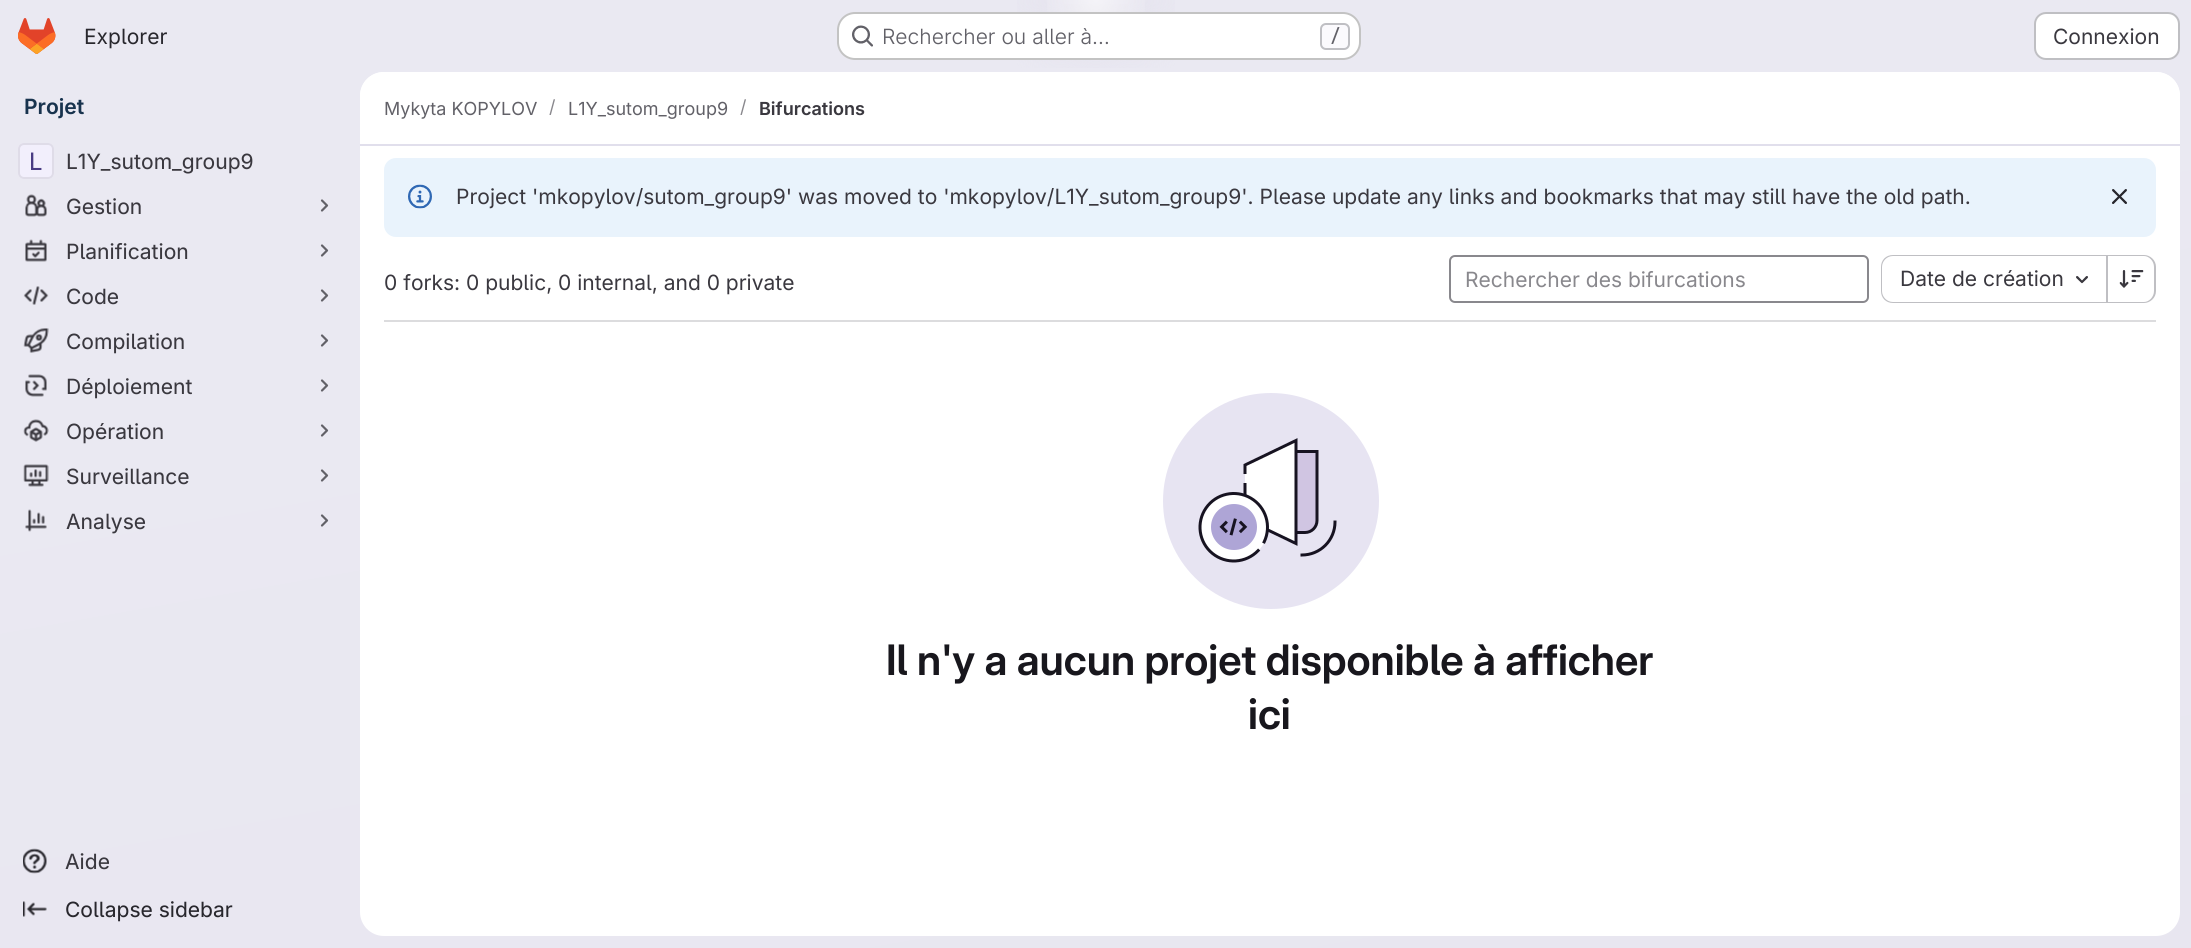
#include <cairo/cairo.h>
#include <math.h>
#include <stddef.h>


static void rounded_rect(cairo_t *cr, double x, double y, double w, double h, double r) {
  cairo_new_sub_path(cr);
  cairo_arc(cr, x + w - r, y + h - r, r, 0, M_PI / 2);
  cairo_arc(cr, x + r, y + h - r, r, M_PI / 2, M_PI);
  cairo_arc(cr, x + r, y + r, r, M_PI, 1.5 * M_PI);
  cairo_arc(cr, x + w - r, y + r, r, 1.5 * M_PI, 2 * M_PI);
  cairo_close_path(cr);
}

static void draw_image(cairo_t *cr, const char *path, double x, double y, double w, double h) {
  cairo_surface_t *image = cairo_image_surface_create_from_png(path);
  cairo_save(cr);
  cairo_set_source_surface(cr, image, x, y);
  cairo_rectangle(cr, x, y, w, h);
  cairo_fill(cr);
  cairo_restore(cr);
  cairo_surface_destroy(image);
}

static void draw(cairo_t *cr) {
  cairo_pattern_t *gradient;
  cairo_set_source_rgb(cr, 1, 1, 1);
  cairo_paint(cr);
  gradient = cairo_pattern_create_linear(1210, 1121, 982, -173);
  cairo_pattern_add_color_stop_rgba(gradient, 0, 232 / 255.0, 230 / 255.0, 240 / 255.0, 1);
  cairo_pattern_add_color_stop_rgba(gradient, 0.7, 234 / 255.0, 233 / 255.0, 242 / 255.0, 1);
  cairo_set_source(cr, gradient);
  cairo_pattern_destroy(gradient);
  cairo_rectangle(cr, 0, 0, 2191, 948);
  cairo_fill(cr);
  gradient = cairo_pattern_create_radial(0, 0, 0, 0, 0, 1);
  cairo_pattern_set_matrix(gradient, &(cairo_matrix_t){1.0 / 1096, 0, 0, 1.0 / 948, -1.0 * 1096 / 1096, -1.0 * 0 / 948});
  cairo_pattern_add_color_stop_rgba(gradient, 0, 228 / 255.0, 226 / 255.0, 237 / 255.0, 1);
  cairo_pattern_add_color_stop_rgba(gradient, 0.1, 228 / 255.0, 226 / 255.0, 237 / 255.0, 0);
  cairo_set_source(cr, gradient);
  cairo_pattern_destroy(gradient);
  cairo_rectangle(cr, 1017, 0, 158, 68);
  cairo_fill(cr);
  gradient = cairo_pattern_create_radial(0, 0, 0, 0, 0, 1);
  cairo_pattern_set_matrix(gradient, &(cairo_matrix_t){1.0 / 1096, 0, 0, 1.0 / 948, -1.0 * 1096 / 1096, -1.0 * 0 / 948});
  cairo_pattern_add_color_stop_rgba(gradient, 0, 228 / 255.0, 226 / 255.0, 236 / 255.0, 1);
  cairo_pattern_add_color_stop_rgba(gradient, 0.07, 228 / 255.0, 226 / 255.0, 236 / 255.0, 0);
  cairo_set_source(cr, gradient);
  cairo_pattern_destroy(gradient);
  cairo_rectangle(cr, 1064, 4, 64, 22);
  cairo_fill(cr);
  gradient = cairo_pattern_create_radial(1096, 0, 0, 1096, 0, 1449);
  cairo_pattern_add_color_stop_rgba(gradient, 0, 1, 1, 1, 0.6);
  cairo_pattern_add_color_stop_rgba(gradient, 0.04, 1, 1, 1, 0);
  cairo_set_source(cr, gradient);
  cairo_pattern_destroy(gradient);
  cairo_rectangle(cr, 1047, 0, 98, 12);
  cairo_fill(cr);
  draw_image(cr, "images/1.png", 18, 18, 38, 36);
  cairo_set_source_rgb(cr, 1, 1, 1);
  rounded_rect(cr, 837, 12, 524, 48, 18);
  cairo_fill(cr);
  rounded_rect(cr, 838, 13, 522, 46, 17);
  cairo_set_source_rgba(cr, 5 / 255.0, 5 / 255.0, 6 / 255.0, 0.24);
  cairo_stroke(cr);
  draw_image(cr, "images/2.png", 852, 25, 21, 22);
  cairo_set_source_rgb(cr, 251 / 255.0, 250 / 255.0, 253 / 255.0);
  rounded_rect(cr, 1321, 24, 28, 25, 5);
  cairo_fill_preserve(cr);
  cairo_set_source_rgb(cr, 191 / 255.0, 191 / 255.0, 195 / 255.0);
  cairo_stroke(cr);
  cairo_set_source_rgb(cr, 1, 1, 1);
  rounded_rect(cr, 2035, 13, 144, 46, 11);
  cairo_fill_preserve(cr);
  cairo_set_source_rgb(cr, 191 / 255.0, 191 / 255.0, 195 / 255.0);
  cairo_stroke(cr);
  cairo_set_source_rgb(cr, 1, 1, 1);
  rounded_rect(cr, 18, 143, 36, 36, 6);
  cairo_fill(cr);
  cairo_set_source_rgba(cr, 203 / 255.0, 187 / 255.0, 242 / 255.0, 0.24);
  rounded_rect(cr, 18, 143, 36, 36, 6);
  cairo_fill(cr);
  rounded_rect(cr, 19, 144, 34, 34, 5);
  cairo_set_source_rgb(cr, 223 / 255.0, 220 / 255.0, 232 / 255.0);
  cairo_stroke(cr);
  draw_image(cr, "images/3.png", 25, 194, 22, 23);
  cairo_new_path(cr);
  cairo_move_to(cr, 322, 200.5);
  cairo_line_to(cr, 327, 205.5);
  cairo_line_to(cr, 322, 210.5);
  cairo_set_source_rgb(cr, 98 / 255.0, 97 / 255.0, 104 / 255.0);
  cairo_set_line_width(cr, 2.2);
  cairo_set_line_cap(cr, CAIRO_LINE_CAP_ROUND);
  cairo_set_line_join(cr, CAIRO_LINE_JOIN_ROUND);
  cairo_stroke(cr);
  draw_image(cr, "images/4.png", 25, 239, 22, 23);
  cairo_new_path(cr);
  cairo_move_to(cr, 322, 245.5);
  cairo_line_to(cr, 327, 250.5);
  cairo_line_to(cr, 322, 255.5);
  cairo_stroke(cr);
  draw_image(cr, "images/5.png", 23, 286, 26, 19);
  cairo_new_path(cr);
  cairo_move_to(cr, 322, 290.5);
  cairo_line_to(cr, 327, 295.5);
  cairo_line_to(cr, 322, 300.5);
  cairo_stroke(cr);
  draw_image(cr, "images/6.png", 23, 328, 26, 25);
  cairo_new_path(cr);
  cairo_move_to(cr, 322, 335.5);
  cairo_line_to(cr, 327, 340.5);
  cairo_line_to(cr, 322, 345.5);
  cairo_stroke(cr);
  draw_image(cr, "images/7.png", 25, 374, 22, 23);
  cairo_new_path(cr);
  cairo_move_to(cr, 322, 380.5);
  cairo_line_to(cr, 327, 385.5);
  cairo_line_to(cr, 322, 390.5);
  cairo_stroke(cr);
  draw_image(cr, "images/8.png", 23, 419, 26, 23);
  cairo_new_path(cr);
  cairo_move_to(cr, 322, 425.5);
  cairo_line_to(cr, 327, 430.5);
  cairo_line_to(cr, 322, 435.5);
  cairo_stroke(cr);
  draw_image(cr, "images/9.png", 23, 464, 26, 23);
  cairo_new_path(cr);
  cairo_move_to(cr, 322, 470.5);
  cairo_line_to(cr, 327, 475.5);
  cairo_line_to(cr, 322, 480.5);
  cairo_stroke(cr);
  draw_image(cr, "images/10.png", 25, 509, 22, 23);
  cairo_new_path(cr);
  cairo_move_to(cr, 322, 515.5);
  cairo_line_to(cr, 327, 520.5);
  cairo_line_to(cr, 322, 525.5);
  cairo_stroke(cr);
  draw_image(cr, "images/11.png", 23, 848, 24, 26);
  draw_image(cr, "images/12.png", 23, 901, 24, 16);
  cairo_set_source_rgb(cr, 1, 1, 1);
  rounded_rect(cr, 360, 72, 1820, 864, 24);
  cairo_fill(cr);
  cairo_new_path(cr);
  cairo_move_to(cr, 384, 72);
  cairo_line_to(cr, 2156, 72);
  cairo_curve_to(cr, 2169.5, 72, 2180, 82.5, 2180, 96);
  cairo_line_to(cr, 2180, 146);
  cairo_line_to(cr, 360, 146);
  cairo_line_to(cr, 360, 96);
  cairo_curve_to(cr, 360, 82.5, 370.5, 72, 384, 72);
  cairo_close_path(cr);
  cairo_fill(cr);
  cairo_set_source_rgb(cr, 225 / 255.0, 223 / 255.0, 236 / 255.0);
  cairo_rectangle(cr, 360, 144, 1820, 2);
  cairo_fill(cr);
  cairo_set_source_rgb(cr, 233 / 255.0, 243 / 255.0, 252 / 255.0);
  rounded_rect(cr, 384, 158, 1772, 79, 12);
  cairo_fill(cr);
  draw_image(cr, "images/13.png", 408, 184, 24, 25);
  draw_image(cr, "images/14.png", 2112, 189, 15, 15);
  cairo_set_source_rgb(cr, 220 / 255.0, 220 / 255.0, 222 / 255.0);
  cairo_rectangle(cr, 384, 320, 1772, 2);
  cairo_fill(cr);
  rounded_rect(cr, 1450, 256, 418, 46, 5);
  cairo_set_source_rgb(cr, 137 / 255.0, 136 / 255.0, 141 / 255.0);
  cairo_set_line_width(cr, 2);
  cairo_set_line_cap(cr, CAIRO_LINE_CAP_BUTT);
  cairo_set_line_join(cr, CAIRO_LINE_JOIN_MITER);
  cairo_stroke(cr);
  cairo_set_source_rgb(cr, 191 / 255.0, 191 / 255.0, 195 / 255.0);
  cairo_set_fill_rule(cr, CAIRO_FILL_RULE_EVEN_ODD);
  cairo_new_path(cr);
  cairo_move_to(cr, 1893, 255);
  cairo_line_to(cr, 2106, 255);
  cairo_line_to(cr, 2106, 303);
  cairo_line_to(cr, 1893, 303);
  cairo_curve_to(cr, 1886, 303, 1881, 298, 1881, 291);
  cairo_line_to(cr, 1881, 267);
  cairo_curve_to(cr, 1881, 260, 1886, 255, 1893, 255);
  cairo_close_path(cr);
  cairo_move_to(cr, 1893, 256);
  cairo_line_to(cr, 2106, 256);
  cairo_line_to(cr, 2106, 302);
  cairo_line_to(cr, 1893, 302);
  cairo_curve_to(cr, 1887, 302, 1882, 297, 1882, 291);
  cairo_line_to(cr, 1882, 267);
  cairo_curve_to(cr, 1882, 261, 1887, 256, 1893, 256);
  cairo_close_path(cr);
  cairo_fill(cr);
  draw_image(cr, "images/15.png", 2076, 276, 12, 8);
  cairo_new_path(cr);
  cairo_move_to(cr, 2108, 255);
  cairo_line_to(cr, 2144, 255);
  cairo_curve_to(cr, 2150, 255, 2156, 260, 2156, 267);
  cairo_line_to(cr, 2156, 291);
  cairo_curve_to(cr, 2156, 298, 2150, 303, 2144, 303);
  cairo_line_to(cr, 2108, 303);
  cairo_close_path(cr);
  cairo_move_to(cr, 2108, 256);
  cairo_line_to(cr, 2144, 256);
  cairo_curve_to(cr, 2149, 256, 2154, 261, 2154, 267);
  cairo_line_to(cr, 2154, 291);
  cairo_curve_to(cr, 2154, 297, 2149, 302, 2144, 302);
  cairo_line_to(cr, 2108, 302);
  cairo_close_path(cr);
  cairo_fill(cr);
  cairo_rectangle(cr, 2106, 255, 2, 48);
  cairo_fill(cr);
  draw_image(cr, "images/16.png", 2119, 270, 25, 18);
  draw_image(cr, "images/17.png", 1163, 393, 216, 216);
  cairo_select_font_face(cr, "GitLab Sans", CAIRO_FONT_SLANT_NORMAL, CAIRO_FONT_WEIGHT_NORMAL);
  cairo_set_font_size(cr, 21);
  cairo_set_source_rgb(cr, 40 / 255.0, 39 / 255.0, 45 / 255.0);
  cairo_move_to(cr, 84, 44);
  cairo_show_text(cr, "Explorer");
  cairo_select_font_face(cr, "GitLab Sans Light", CAIRO_FONT_SLANT_NORMAL, CAIRO_FONT_WEIGHT_NORMAL);
  cairo_set_source_rgb(cr, 98 / 255.0, 97 / 255.0, 104 / 255.0);
  cairo_move_to(cr, 882, 44);
  cairo_show_text(cr, "Rechercher ou aller à…");
  cairo_select_font_face(cr, "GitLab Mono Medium", CAIRO_FONT_SLANT_NORMAL, CAIRO_FONT_WEIGHT_NORMAL);
  cairo_set_font_size(cr, 18);
  cairo_move_to(cr, 1330, 42);
  cairo_show_text(cr, "/");
  cairo_select_font_face(cr, "GitLab Sans", CAIRO_FONT_SLANT_NORMAL, CAIRO_FONT_WEIGHT_NORMAL);
  cairo_set_font_size(cr, 21);
  cairo_set_source_rgb(cr, 58 / 255.0, 56 / 255.0, 63 / 255.0);
  cairo_move_to(cr, 2053, 44);
  cairo_show_text(cr, "Connexion");
  cairo_select_font_face(cr, "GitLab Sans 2 SemiBold", CAIRO_FONT_SLANT_NORMAL, CAIRO_FONT_WEIGHT_NORMAL);
  cairo_set_source_rgb(cr, 24 / 255.0, 51 / 255.0, 78 / 255.0);
  cairo_move_to(cr, 24, 114);
  cairo_show_text(cr, "Projet");
  cairo_select_font_face(cr, "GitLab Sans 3", CAIRO_FONT_SLANT_NORMAL, CAIRO_FONT_WEIGHT_NORMAL);
  cairo_set_font_size(cr, 24);
  cairo_set_source_rgb(cr, 73 / 255.0, 60 / 255.0, 131 / 255.0);
  cairo_move_to(cr, 29, 170);
  cairo_show_text(cr, "L");
  cairo_select_font_face(cr, "GitLab Sans 2", CAIRO_FONT_SLANT_NORMAL, CAIRO_FONT_WEIGHT_NORMAL);
  cairo_set_font_size(cr, 21);
  cairo_set_source_rgb(cr, 58 / 255.0, 56 / 255.0, 63 / 255.0);
  cairo_move_to(cr, 66, 169);
  cairo_show_text(cr, "L1Y_sutom_group9");
  cairo_move_to(cr, 66, 214);
  cairo_show_text(cr, "Gestion");
  cairo_move_to(cr, 66, 259);
  cairo_show_text(cr, "Planification");
  cairo_move_to(cr, 66, 304);
  cairo_show_text(cr, "Code");
  cairo_move_to(cr, 66, 349);
  cairo_show_text(cr, "Compilation");
  cairo_move_to(cr, 66, 394);
  cairo_show_text(cr, "Déploiement");
  cairo_move_to(cr, 66, 439);
  cairo_show_text(cr, "Opération");
  cairo_move_to(cr, 66, 484);
  cairo_show_text(cr, "Surveillance");
  cairo_move_to(cr, 66, 529);
  cairo_show_text(cr, "Analyse");
  cairo_move_to(cr, 65, 869);
  cairo_show_text(cr, "Aide");
  cairo_set_source_rgb(cr, 40 / 255.0, 39 / 255.0, 45 / 255.0);
  cairo_move_to(cr, 65, 917);
  cairo_show_text(cr, "Collapse sidebar");
  cairo_select_font_face(cr, "GitLab Sans", CAIRO_FONT_SLANT_NORMAL, CAIRO_FONT_WEIGHT_NORMAL);
  cairo_set_font_size(cr, 18);
  cairo_set_source_rgb(cr, 98 / 255.0, 97 / 255.0, 104 / 255.0);
  cairo_move_to(cr, 384, 115);
  cairo_show_text(cr, "Mykyta KOPYLOV");
  cairo_set_source_rgb(cr, 137 / 255.0, 136 / 255.0, 141 / 255.0);
  cairo_move_to(cr, 549, 113);
  cairo_show_text(cr, "/");
  cairo_set_source_rgb(cr, 98 / 255.0, 97 / 255.0, 104 / 255.0);
  cairo_move_to(cr, 568, 115);
  cairo_show_text(cr, "L1Y_sutom_group9");
  cairo_set_source_rgb(cr, 137 / 255.0, 136 / 255.0, 141 / 255.0);
  cairo_move_to(cr, 740, 113);
  cairo_show_text(cr, "/");
  cairo_select_font_face(cr, "GitLab Sans 2 SemiBold", CAIRO_FONT_SLANT_NORMAL, CAIRO_FONT_WEIGHT_NORMAL);
  cairo_set_source_rgb(cr, 58 / 255.0, 56 / 255.0, 63 / 255.0);
  cairo_move_to(cr, 759, 115);
  cairo_show_text(cr, "Bifurcations");
  cairo_select_font_face(cr, "GitLab Sans", CAIRO_FONT_SLANT_NORMAL, CAIRO_FONT_WEIGHT_NORMAL);
  cairo_set_font_size(cr, 21);
  cairo_move_to(cr, 456, 204);
  cairo_show_text(cr, "Project 'mkopylov/sutom_group9' was moved to 'mkopylov/L1Y_sutom_group9'. Please update any links and bookmarks that may still have the old path.");
  cairo_move_to(cr, 384, 290);
  cairo_show_text(cr, "0 forks: 0 public, 0 internal, and 0 private");
  cairo_set_source_rgb(cr, 137 / 255.0, 136 / 255.0, 141 / 255.0);
  cairo_move_to(cr, 1465, 287);
  cairo_show_text(cr, "Rechercher des bifurcations");
  cairo_set_source_rgb(cr, 58 / 255.0, 56 / 255.0, 63 / 255.0);
  cairo_move_to(cr, 1900, 286);
  cairo_show_text(cr, "Date de création");
  cairo_select_font_face(cr, "GitLab Sans SemiBold", CAIRO_FONT_SLANT_NORMAL, CAIRO_FONT_WEIGHT_NORMAL);
  cairo_set_font_size(cr, 42);
  cairo_set_source_rgb(cr, 24 / 255.0, 23 / 255.0, 29 / 255.0);
  cairo_move_to(cr, 886, 675);
  cairo_show_text(cr, "Il n'y a aucun projet disponible à afficher");
  cairo_move_to(cr, 1248, 729);
  cairo_show_text(cr, "ici");
}

int main(void) {
  cairo_surface_t *surface = cairo_image_surface_create(CAIRO_FORMAT_RGB24, 2191, 948);
  cairo_t *cr = cairo_create(surface);
  cairo_font_options_t *options = cairo_font_options_create();
  cairo_font_options_set_hint_metrics(options, CAIRO_HINT_METRICS_OFF);
  cairo_font_options_set_hint_style(options, CAIRO_HINT_STYLE_NONE);
  cairo_set_font_options(cr, options);
  cairo_set_miter_limit(cr, 4);
  draw(cr);
  cairo_surface_write_to_png(surface, "out.png");
  cairo_font_options_destroy(options);
  cairo_destroy(cr);
  cairo_surface_destroy(surface);
  return 0;
}
